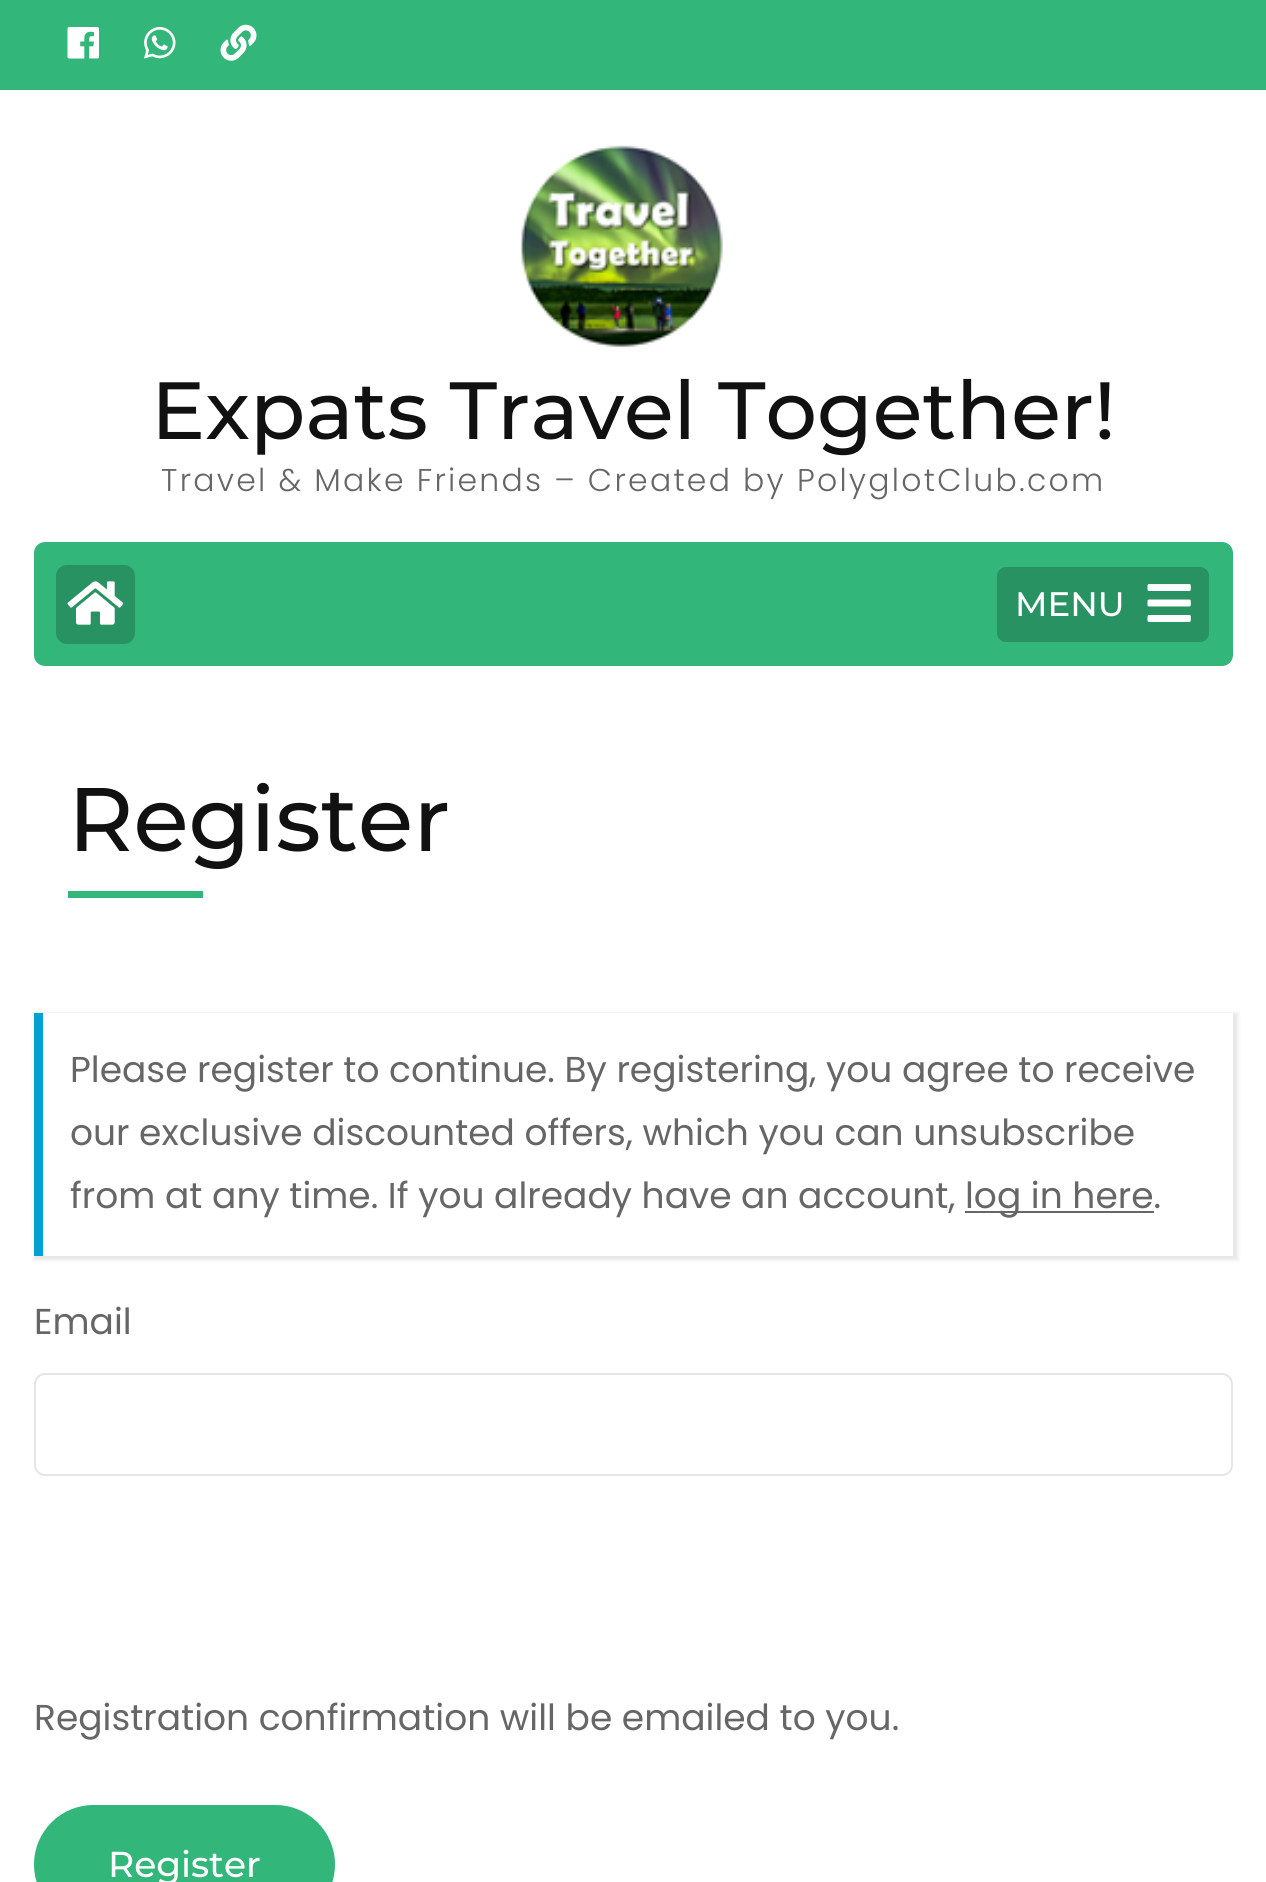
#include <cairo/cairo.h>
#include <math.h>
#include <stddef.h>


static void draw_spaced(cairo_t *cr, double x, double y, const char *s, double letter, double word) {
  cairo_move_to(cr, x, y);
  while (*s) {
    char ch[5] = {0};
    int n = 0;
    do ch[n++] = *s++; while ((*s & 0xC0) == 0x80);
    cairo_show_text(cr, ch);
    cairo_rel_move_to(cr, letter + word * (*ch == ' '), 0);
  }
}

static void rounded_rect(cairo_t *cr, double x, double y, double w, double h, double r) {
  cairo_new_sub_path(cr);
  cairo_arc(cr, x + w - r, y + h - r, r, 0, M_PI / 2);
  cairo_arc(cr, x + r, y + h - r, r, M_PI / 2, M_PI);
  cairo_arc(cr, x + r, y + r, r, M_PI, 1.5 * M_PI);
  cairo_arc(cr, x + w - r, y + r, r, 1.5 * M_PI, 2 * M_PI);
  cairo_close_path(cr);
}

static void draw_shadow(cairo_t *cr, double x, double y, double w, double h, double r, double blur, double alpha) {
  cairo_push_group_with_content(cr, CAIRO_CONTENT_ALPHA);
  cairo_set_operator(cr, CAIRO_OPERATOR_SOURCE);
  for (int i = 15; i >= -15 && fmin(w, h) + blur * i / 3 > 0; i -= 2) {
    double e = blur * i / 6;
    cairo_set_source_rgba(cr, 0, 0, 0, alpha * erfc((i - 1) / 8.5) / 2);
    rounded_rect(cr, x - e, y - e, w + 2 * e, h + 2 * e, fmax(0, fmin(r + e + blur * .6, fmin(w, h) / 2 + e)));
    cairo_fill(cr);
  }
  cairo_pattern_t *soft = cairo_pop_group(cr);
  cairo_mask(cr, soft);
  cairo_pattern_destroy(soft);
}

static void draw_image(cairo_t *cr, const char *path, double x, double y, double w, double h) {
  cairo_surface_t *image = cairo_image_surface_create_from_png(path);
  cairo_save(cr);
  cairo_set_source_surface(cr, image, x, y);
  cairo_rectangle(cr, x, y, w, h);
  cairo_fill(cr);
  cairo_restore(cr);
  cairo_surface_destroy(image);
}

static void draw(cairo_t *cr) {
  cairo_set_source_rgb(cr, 1, 1, 1);
  cairo_paint(cr);
  cairo_set_source_rgb(cr, 50 / 255.0, 182 / 255.0, 122 / 255.0);
  cairo_rectangle(cr, 0, 0, 1266, 90);
  cairo_fill(cr);
  draw_image(cr, "images/1.png", 67, 27, 32, 32);
  draw_image(cr, "images/2.png", 144, 27, 32, 32);
  draw_image(cr, "images/3.png", 220, 24, 37, 37);
  draw_image(cr, "images/4.png", 520, 145, 203, 203);
  rounded_rect(cr, 34, 542, 1199, 124, 11);
  cairo_fill(cr);
  cairo_set_source_rgb(cr, 40 / 255.0, 146 / 255.0, 98 / 255.0);
  rounded_rect(cr, 56, 565, 79, 79, 11);
  cairo_fill(cr);
  draw_image(cr, "images/5.png", 67, 581, 57, 44);
  rounded_rect(cr, 996, 566, 214, 77, 10);
  cairo_fill_preserve(cr);
  cairo_set_source_rgb(cr, 50 / 255.0, 182 / 255.0, 122 / 255.0);
  cairo_stroke(cr);
  draw_image(cr, "images/6.png", 1147, 584, 44, 38);
  cairo_rectangle(cr, 68, 891, 135, 7);
  cairo_fill(cr);
  cairo_save(cr);
  cairo_set_fill_rule(cr, CAIRO_FILL_RULE_EVEN_ODD);
  cairo_new_path(cr);
  cairo_move_to(cr, 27, 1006);
  cairo_line_to(cr, 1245, 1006);
  cairo_line_to(cr, 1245, 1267);
  cairo_line_to(cr, 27, 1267);
  cairo_close_path(cr);
  cairo_move_to(cr, 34, 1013);
  cairo_line_to(cr, 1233, 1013);
  cairo_line_to(cr, 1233, 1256);
  cairo_line_to(cr, 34, 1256);
  cairo_close_path(cr);
  cairo_clip(cr);
  cairo_set_source_rgb(cr, 0, 0, 0);
  draw_shadow(cr, 34, 1013, 1204, 247, 0, 2, 0.1);
  cairo_restore(cr);
  cairo_set_source_rgb(cr, 0, 160 / 255.0, 210 / 255.0);
  cairo_rectangle(cr, 34, 1013, 9, 243);
  cairo_fill(cr);
  cairo_set_source_rgb(cr, 102 / 255.0, 102 / 255.0, 102 / 255.0);
  cairo_rectangle(cr, 965, 1211, 189, 2);
  cairo_fill(cr);
  rounded_rect(cr, 35, 1374, 1197, 101, 10);
  cairo_set_source_rgb(cr, 229 / 255.0, 229 / 255.0, 229 / 255.0);
  cairo_stroke(cr);
  cairo_set_source_rgb(cr, 50 / 255.0, 182 / 255.0, 122 / 255.0);
  rounded_rect(cr, 35, 1806, 299, 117, 58.5);
  cairo_fill_preserve(cr);
  cairo_stroke(cr);
  cairo_select_font_face(cr, "Montserrat Medium", CAIRO_FONT_SLANT_NORMAL, CAIRO_FONT_WEIGHT_NORMAL);
  cairo_set_font_size(cr, 81);
  cairo_set_source_rgb(cr, 17 / 255.0, 17 / 255.0, 17 / 255.0);
  cairo_move_to(cr, 151, 439);
  cairo_show_text(cr, "Expats Travel Together!");
  cairo_select_font_face(cr, "Poppins Light", CAIRO_FONT_SLANT_NORMAL, CAIRO_FONT_WEIGHT_NORMAL);
  cairo_set_font_size(cr, 31.5);
  cairo_set_source_rgb(cr, 102 / 255.0, 102 / 255.0, 102 / 255.0);
  draw_spaced(cr, 161, 491, "Travel & Make Friends – Created by PolyglotClub.com", 2.25, 0);
  cairo_select_font_face(cr, "Montserrat Medium", CAIRO_FONT_SLANT_NORMAL, CAIRO_FONT_WEIGHT_NORMAL);
  cairo_set_font_size(cr, 34);
  cairo_set_source_rgb(cr, 1, 1, 1);
  cairo_move_to(cr, 1015, 616);
  cairo_show_text(cr, "MENU");
  cairo_set_font_size(cr, 90);
  cairo_set_source_rgb(cr, 17 / 255.0, 17 / 255.0, 17 / 255.0);
  cairo_move_to(cr, 68, 851);
  cairo_show_text(cr, "Register");
  cairo_select_font_face(cr, "Poppins", CAIRO_FONT_SLANT_NORMAL, CAIRO_FONT_WEIGHT_NORMAL);
  cairo_set_font_size(cr, 36);
  cairo_set_source_rgb(cr, 102 / 255.0, 102 / 255.0, 102 / 255.0);
  cairo_move_to(cr, 70, 1082);
  cairo_show_text(cr, "Please register to continue. By registering, you agree to receive");
  cairo_move_to(cr, 70, 1145);
  cairo_show_text(cr, "our exclusive discounted offers, which you can unsubscribe");
  cairo_move_to(cr, 70, 1208);
  cairo_show_text(cr, "from at any time. If you already have an account,");
  cairo_move_to(cr, 965, 1208);
  cairo_show_text(cr, "log in here.");
  cairo_move_to(cr, 34, 1334);
  cairo_show_text(cr, "Email");
  cairo_move_to(cr, 34, 1730);
  cairo_show_text(cr, "Registration confirmation will be emailed to you.");
  cairo_select_font_face(cr, "Montserrat Medium", CAIRO_FONT_SLANT_NORMAL, CAIRO_FONT_WEIGHT_NORMAL);
  cairo_set_source_rgb(cr, 1, 1, 1);
  cairo_move_to(cr, 108, 1877);
  cairo_show_text(cr, "Register");
}

int main(void) {
  cairo_surface_t *surface = cairo_image_surface_create(CAIRO_FORMAT_RGB24, 1266, 1882);
  cairo_t *cr = cairo_create(surface);
  cairo_font_options_t *options = cairo_font_options_create();
  cairo_font_options_set_hint_metrics(options, CAIRO_HINT_METRICS_OFF);
  cairo_font_options_set_hint_style(options, CAIRO_HINT_STYLE_NONE);
  cairo_set_font_options(cr, options);
  cairo_set_miter_limit(cr, 4);
  draw(cr);
  cairo_surface_write_to_png(surface, "out.png");
  cairo_font_options_destroy(options);
  cairo_destroy(cr);
  cairo_surface_destroy(surface);
  return 0;
}
